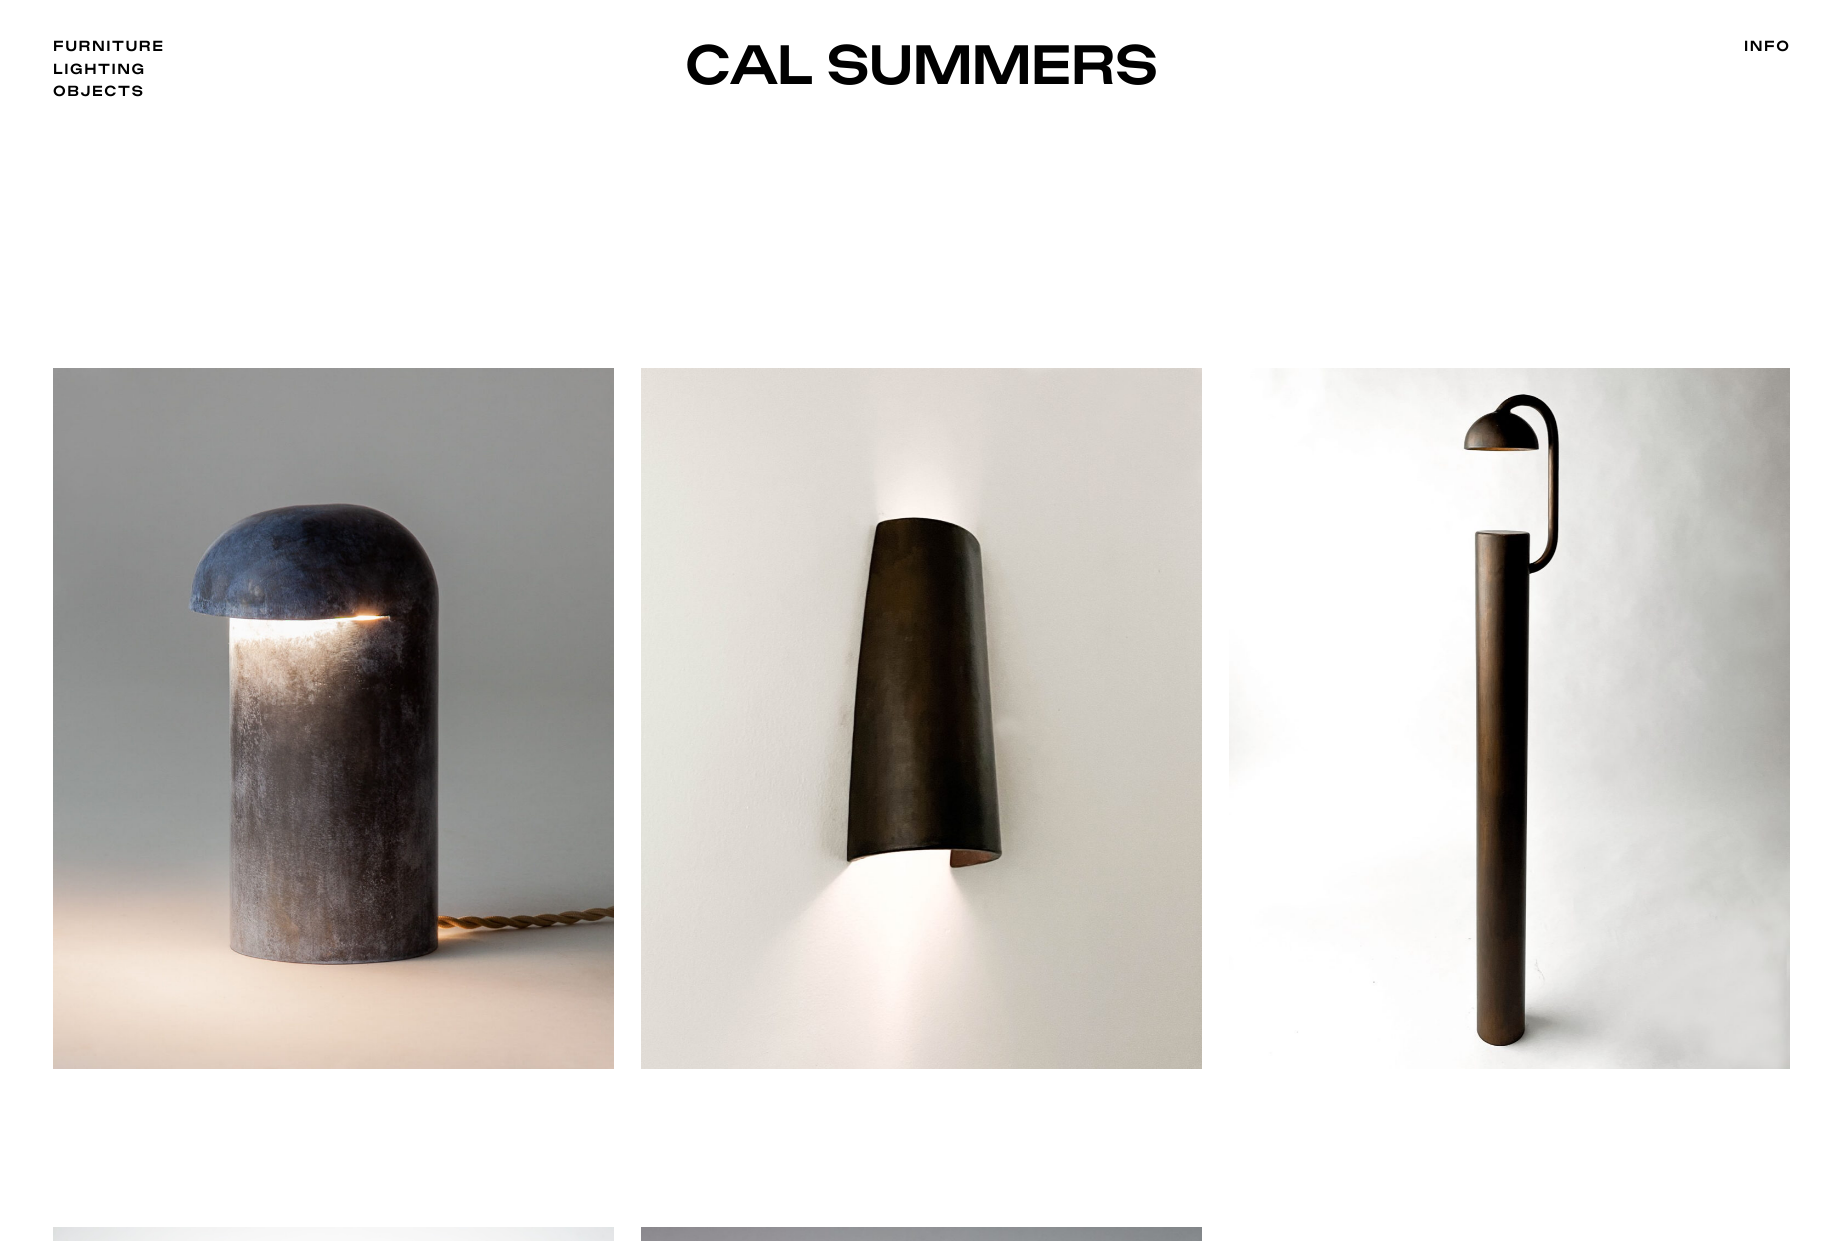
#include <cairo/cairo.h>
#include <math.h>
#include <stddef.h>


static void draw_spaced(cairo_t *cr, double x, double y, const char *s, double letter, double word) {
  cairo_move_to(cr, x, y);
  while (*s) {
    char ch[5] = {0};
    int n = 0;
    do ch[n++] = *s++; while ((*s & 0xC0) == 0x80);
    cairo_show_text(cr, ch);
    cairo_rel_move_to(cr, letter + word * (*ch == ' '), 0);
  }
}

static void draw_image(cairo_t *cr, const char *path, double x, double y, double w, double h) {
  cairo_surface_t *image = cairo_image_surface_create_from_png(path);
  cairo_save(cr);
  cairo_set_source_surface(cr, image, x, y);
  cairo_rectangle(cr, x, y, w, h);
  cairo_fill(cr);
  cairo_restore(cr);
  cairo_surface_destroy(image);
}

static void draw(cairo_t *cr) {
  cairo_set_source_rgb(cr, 1, 1, 1);
  cairo_paint(cr);
  draw_image(cr, "images/1.png", 53, 368, 561, 701);
  draw_image(cr, "images/2.png", 641, 368, 561, 701);
  draw_image(cr, "images/3.png", 1229, 368, 561, 701);
  draw_image(cr, "images/4.png", 53, 1227, 561, 14);
  draw_image(cr, "images/5.png", 641, 1227, 561, 14);
  cairo_select_font_face(cr, "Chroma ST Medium", CAIRO_FONT_SLANT_NORMAL, CAIRO_FONT_WEIGHT_NORMAL);
  cairo_set_font_size(cr, 15.75);
  cairo_set_source_rgb(cr, 0, 0, 0);
  draw_spaced(cr, 53, 51, "FURNITURE", 1.5, 0);
  draw_spaced(cr, 53, 74, "LIGHTING", 1.5, 0);
  draw_spaced(cr, 53, 96, "OBJECTS", 1.5, 0);
  cairo_set_font_size(cr, 59.5);
  draw_spaced(cr, 685, 84, "CAL SUMMERS", -1.25, 0);
  cairo_set_font_size(cr, 15.75);
  draw_spaced(cr, 1744, 51, "INFO", 1.5, 0);
}

int main(void) {
  cairo_surface_t *surface = cairo_image_surface_create(CAIRO_FORMAT_RGB24, 1842, 1241);
  cairo_t *cr = cairo_create(surface);
  cairo_font_options_t *options = cairo_font_options_create();
  cairo_font_options_set_hint_metrics(options, CAIRO_HINT_METRICS_OFF);
  cairo_font_options_set_hint_style(options, CAIRO_HINT_STYLE_NONE);
  cairo_set_font_options(cr, options);
  cairo_set_miter_limit(cr, 4);
  draw(cr);
  cairo_surface_write_to_png(surface, "out.png");
  cairo_font_options_destroy(options);
  cairo_destroy(cr);
  cairo_surface_destroy(surface);
  return 0;
}
